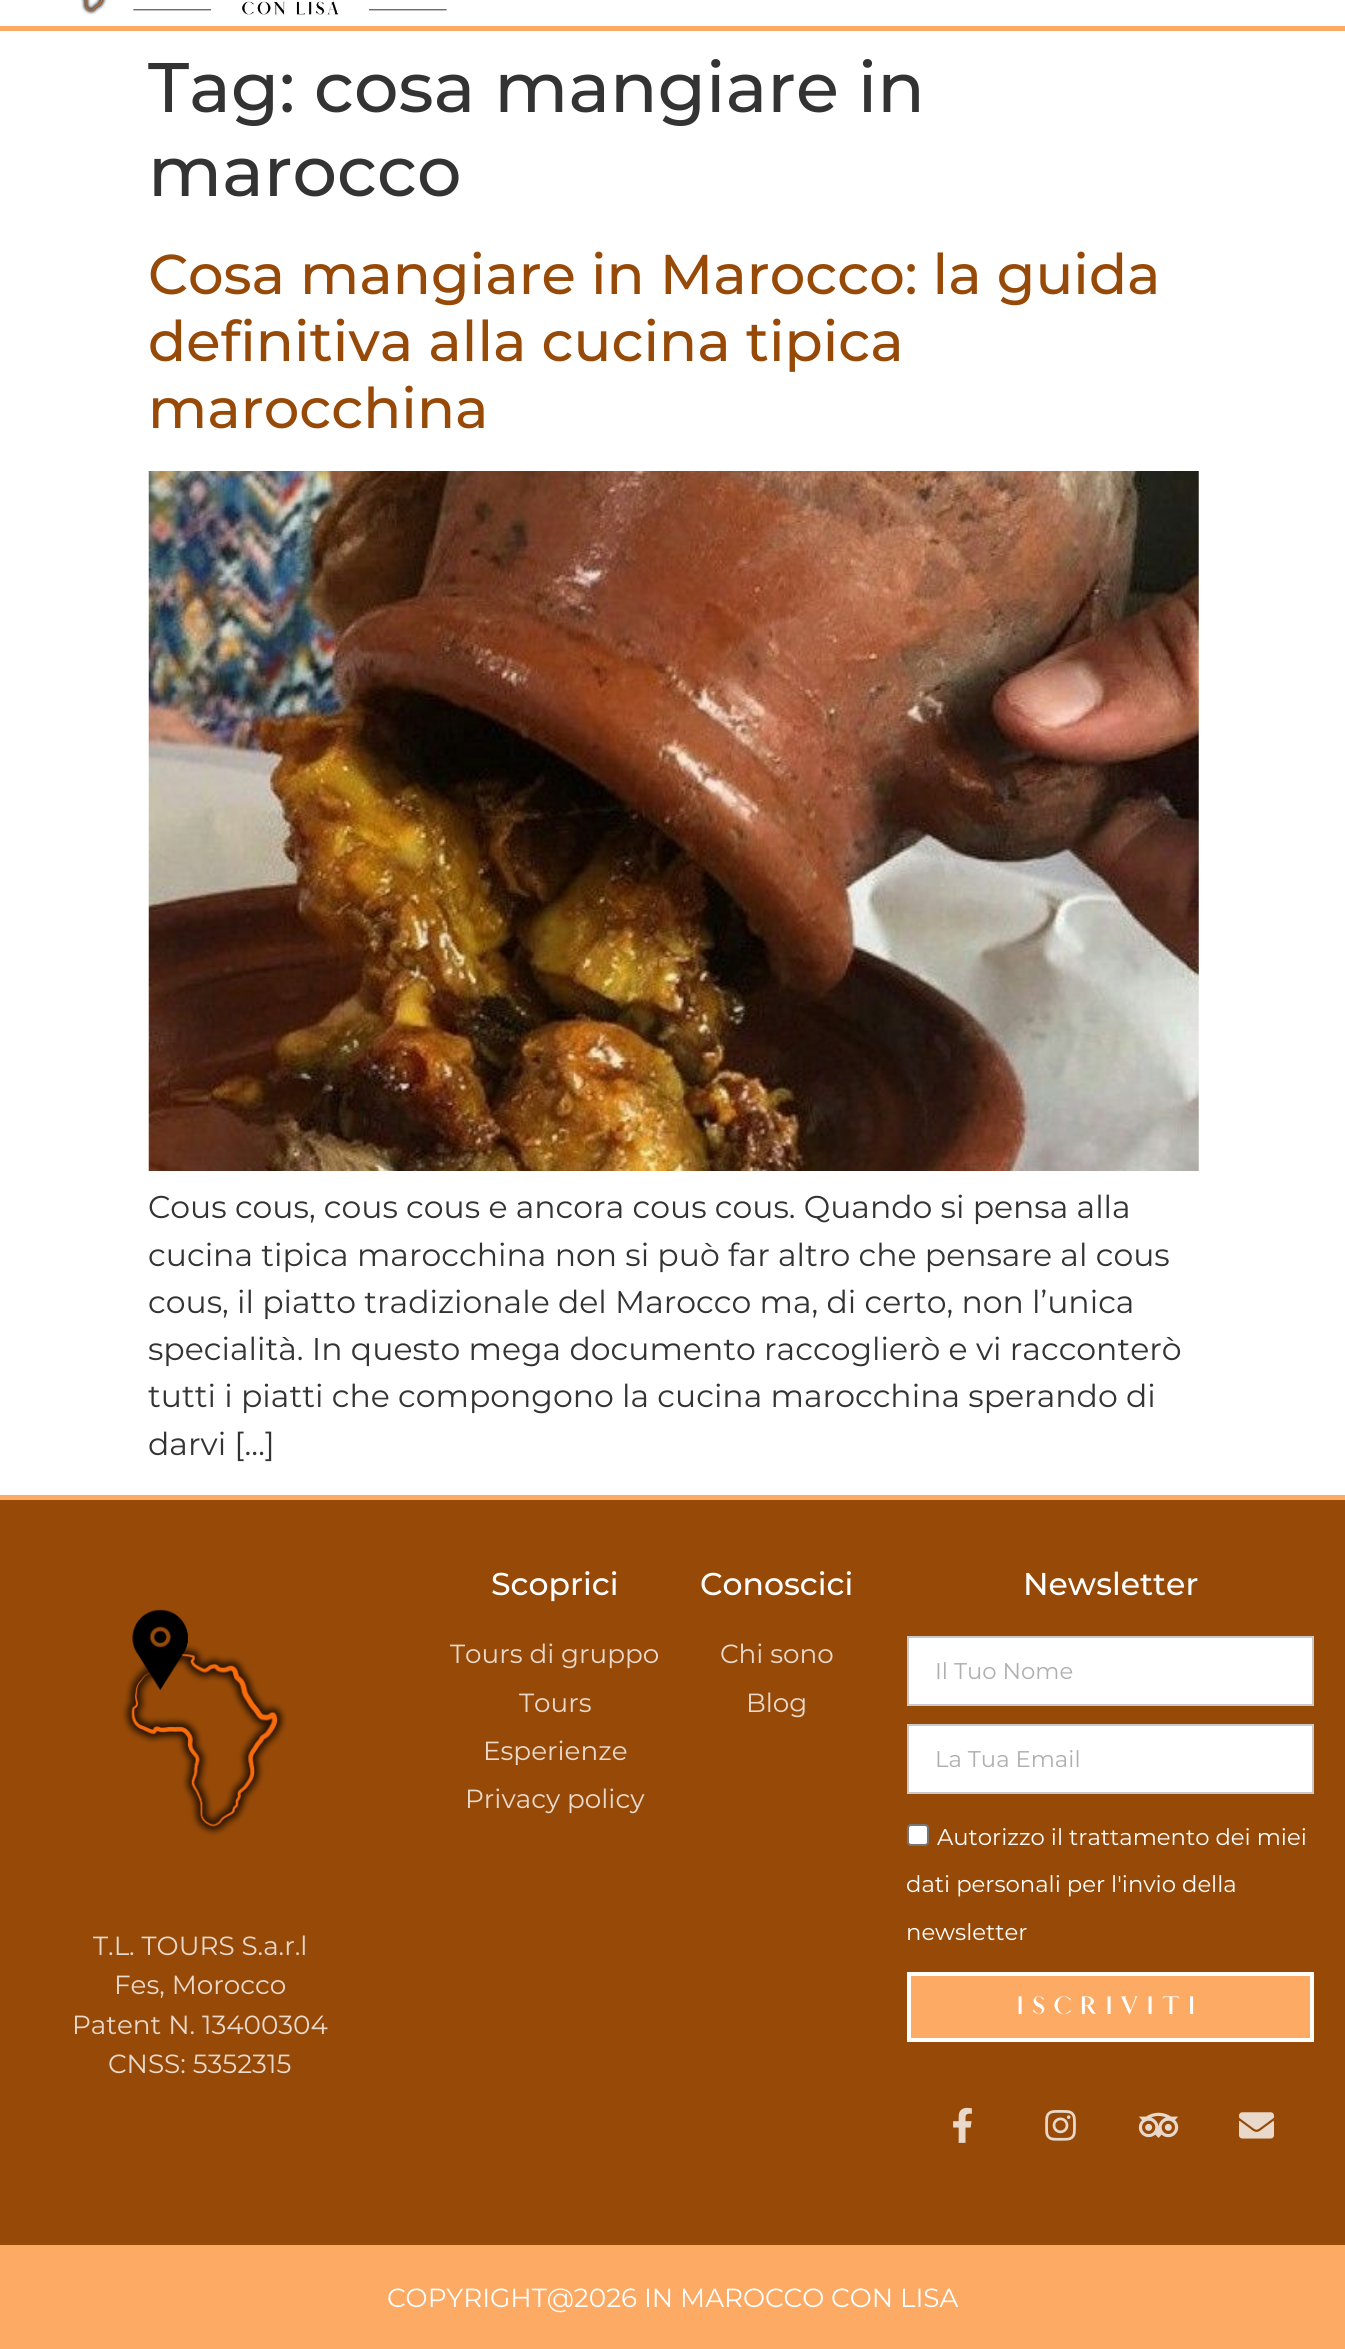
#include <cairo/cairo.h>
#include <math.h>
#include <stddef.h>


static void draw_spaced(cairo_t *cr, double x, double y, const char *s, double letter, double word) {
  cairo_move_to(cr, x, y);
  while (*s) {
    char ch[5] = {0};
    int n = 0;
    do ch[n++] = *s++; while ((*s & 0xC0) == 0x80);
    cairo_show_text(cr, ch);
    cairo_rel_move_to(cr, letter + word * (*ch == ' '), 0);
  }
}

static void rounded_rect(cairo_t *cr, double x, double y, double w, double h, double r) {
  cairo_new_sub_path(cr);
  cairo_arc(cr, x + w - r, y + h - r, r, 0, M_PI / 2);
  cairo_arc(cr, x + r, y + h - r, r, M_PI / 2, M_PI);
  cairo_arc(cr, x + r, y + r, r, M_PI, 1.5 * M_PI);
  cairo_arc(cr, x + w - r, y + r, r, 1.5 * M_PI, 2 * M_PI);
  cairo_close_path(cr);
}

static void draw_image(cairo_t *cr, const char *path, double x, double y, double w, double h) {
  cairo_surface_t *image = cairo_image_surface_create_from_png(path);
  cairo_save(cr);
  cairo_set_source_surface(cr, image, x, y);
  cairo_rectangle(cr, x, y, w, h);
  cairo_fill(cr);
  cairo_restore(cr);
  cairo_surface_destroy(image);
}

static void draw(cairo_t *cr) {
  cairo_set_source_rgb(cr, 1, 1, 1);
  cairo_paint(cr);
  cairo_set_source_rgb(cr, 253 / 255.0, 170 / 255.0, 100 / 255.0);
  cairo_rectangle(cr, 0, 26, 1345, 5);
  cairo_fill(cr);
  draw_image(cr, "images/1.png", 81, 0, 366, 15);
  draw_image(cr, "images/2.png", 148, 471, 1051, 700);
  cairo_set_source_rgb(cr, 151 / 255.0, 74 / 255.0, 8 / 255.0);
  cairo_rectangle(cr, 0, 1500, 1345, 745);
  cairo_fill(cr);
  cairo_set_source_rgb(cr, 253 / 255.0, 170 / 255.0, 100 / 255.0);
  cairo_rectangle(cr, 0, 1495, 1345, 5);
  cairo_fill(cr);
  draw_image(cr, "images/3.png", 122, 1609, 165, 227);
  cairo_set_source_rgb(cr, 1, 1, 1);
  cairo_rectangle(cr, 908, 1637, 405, 68);
  cairo_fill_preserve(cr);
  cairo_set_source_rgb(cr, 201 / 255.0, 201 / 255.0, 201 / 255.0);
  cairo_stroke(cr);
  cairo_set_source_rgb(cr, 1, 1, 1);
  cairo_rectangle(cr, 908, 1725, 405, 68);
  cairo_fill_preserve(cr);
  cairo_set_source_rgb(cr, 201 / 255.0, 201 / 255.0, 201 / 255.0);
  cairo_stroke(cr);
  cairo_set_source_rgb(cr, 1, 1, 1);
  rounded_rect(cr, 908, 1825, 20, 20, 3);
  cairo_fill_preserve(cr);
  cairo_set_source_rgb(cr, 118 / 255.0, 118 / 255.0, 118 / 255.0);
  cairo_stroke(cr);
  cairo_set_source_rgb(cr, 253 / 255.0, 170 / 255.0, 100 / 255.0);
  cairo_rectangle(cr, 909, 1974, 403, 66);
  cairo_fill_preserve(cr);
  cairo_set_source_rgb(cr, 1, 1, 1);
  cairo_set_line_width(cr, 4);
  cairo_stroke(cr);
  draw_image(cr, "images/4.png", 953, 2107, 19, 36);
  draw_image(cr, "images/5.png", 1045, 2110, 31, 31);
  draw_image(cr, "images/6.png", 1138, 2112, 41, 26);
  draw_image(cr, "images/7.png", 1239, 2112, 35, 27);
  cairo_set_source_rgb(cr, 253 / 255.0, 170 / 255.0, 100 / 255.0);
  cairo_rectangle(cr, 0, 2245, 1345, 104);
  cairo_fill(cr);
  cairo_select_font_face(cr, "Montserrat Medium", CAIRO_FONT_SLANT_NORMAL, CAIRO_FONT_WEIGHT_NORMAL);
  cairo_set_font_size(cr, 70);
  cairo_set_source_rgb(cr, 51 / 255.0, 51 / 255.0, 51 / 255.0);
  cairo_move_to(cr, 148, 112);
  cairo_show_text(cr, "Tag: cosa mangiare in");
  cairo_move_to(cr, 148, 196);
  cairo_show_text(cr, "marocco");
  cairo_set_font_size(cr, 56);
  cairo_set_source_rgb(cr, 151 / 255.0, 74 / 255.0, 8 / 255.0);
  cairo_move_to(cr, 148, 294);
  cairo_show_text(cr, "Cosa mangiare in Marocco: la guida");
  cairo_move_to(cr, 148, 361);
  cairo_show_text(cr, "definitiva alla cucina tipica");
  cairo_move_to(cr, 148, 428);
  cairo_show_text(cr, "marocchina");
  cairo_select_font_face(cr, "Montserrat", CAIRO_FONT_SLANT_NORMAL, CAIRO_FONT_WEIGHT_NORMAL);
  cairo_set_font_size(cr, 31.5);
  cairo_set_source_rgb(cr, 51 / 255.0, 51 / 255.0, 51 / 255.0);
  cairo_move_to(cr, 148, 1218);
  cairo_show_text(cr, "Cous cous, cous cous e ancora cous cous. Quando si pensa alla");
  cairo_move_to(cr, 148, 1266);
  cairo_show_text(cr, "cucina tipica marocchina non si può far altro che pensare al cous");
  cairo_move_to(cr, 148, 1313);
  cairo_show_text(cr, "cous, il piatto tradizionale del Marocco ma, di certo, non l’unica");
  cairo_move_to(cr, 148, 1360);
  cairo_show_text(cr, "specialità. In questo mega documento raccoglierò e vi racconterò");
  cairo_move_to(cr, 148, 1407);
  cairo_show_text(cr, "tutti i piatti che compongono la cucina marocchina sperando di");
  cairo_move_to(cr, 148, 1455);
  cairo_show_text(cr, "darvi […]");
  cairo_set_font_size(cr, 26.25);
  cairo_set_source_rgb(cr, 233 / 255.0, 217 / 255.0, 203 / 255.0);
  cairo_move_to(cr, 93, 1955);
  cairo_show_text(cr, "T.L. TOURS S.a.r.l");
  cairo_move_to(cr, 114, 1994);
  cairo_show_text(cr, "Fes, Morocco");
  cairo_move_to(cr, 72, 2034);
  cairo_show_text(cr, "Patent N. 13400304");
  cairo_move_to(cr, 108, 2073);
  cairo_show_text(cr, "CNSS: 5352315");
  cairo_select_font_face(cr, "Montserrat Medium", CAIRO_FONT_SLANT_NORMAL, CAIRO_FONT_WEIGHT_NORMAL);
  cairo_set_font_size(cr, 31.5);
  cairo_set_source_rgb(cr, 1, 1, 1);
  cairo_move_to(cr, 491, 1595);
  cairo_show_text(cr, "Scoprici");
  cairo_select_font_face(cr, "Montserrat", CAIRO_FONT_SLANT_NORMAL, CAIRO_FONT_WEIGHT_NORMAL);
  cairo_set_font_size(cr, 26.25);
  cairo_set_source_rgb(cr, 233 / 255.0, 217 / 255.0, 203 / 255.0);
  cairo_move_to(cr, 450, 1663);
  cairo_show_text(cr, "Tours di gruppo");
  cairo_move_to(cr, 519, 1712);
  cairo_show_text(cr, "Tours");
  cairo_move_to(cr, 483, 1760);
  cairo_show_text(cr, "Esperienze");
  cairo_move_to(cr, 465, 1808);
  cairo_show_text(cr, "Privacy policy");
  cairo_select_font_face(cr, "Montserrat Medium", CAIRO_FONT_SLANT_NORMAL, CAIRO_FONT_WEIGHT_NORMAL);
  cairo_set_font_size(cr, 31.5);
  cairo_set_source_rgb(cr, 1, 1, 1);
  cairo_move_to(cr, 700, 1595);
  cairo_show_text(cr, "Conoscici");
  cairo_select_font_face(cr, "Montserrat", CAIRO_FONT_SLANT_NORMAL, CAIRO_FONT_WEIGHT_NORMAL);
  cairo_set_font_size(cr, 26.25);
  cairo_set_source_rgb(cr, 233 / 255.0, 217 / 255.0, 203 / 255.0);
  cairo_move_to(cr, 720, 1663);
  cairo_show_text(cr, "Chi sono");
  cairo_move_to(cr, 746, 1712);
  cairo_show_text(cr, "Blog");
  cairo_select_font_face(cr, "Montserrat Medium", CAIRO_FONT_SLANT_NORMAL, CAIRO_FONT_WEIGHT_NORMAL);
  cairo_set_font_size(cr, 31.5);
  cairo_set_source_rgb(cr, 1, 1, 1);
  cairo_move_to(cr, 1023, 1595);
  cairo_show_text(cr, "Newsletter");
  cairo_select_font_face(cr, "Montserrat", CAIRO_FONT_SLANT_NORMAL, CAIRO_FONT_WEIGHT_NORMAL);
  cairo_set_font_size(cr, 22.75);
  cairo_set_source_rgb(cr, 175 / 255.0, 175 / 255.0, 175 / 255.0);
  cairo_move_to(cr, 935, 1679);
  cairo_show_text(cr, "Il Tuo Nome");
  cairo_move_to(cr, 935, 1767);
  cairo_show_text(cr, "La Tua Email");
  cairo_set_source_rgb(cr, 1, 1, 1);
  cairo_move_to(cr, 937, 1845);
  cairo_show_text(cr, "Autorizzo il trattamento dei miei");
  cairo_move_to(cr, 906, 1892);
  cairo_show_text(cr, "dati personali per l'invio della");
  cairo_move_to(cr, 906, 1940);
  cairo_show_text(cr, "newsletter");
  cairo_select_font_face(cr, "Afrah", CAIRO_FONT_SLANT_NORMAL, CAIRO_FONT_WEIGHT_BOLD);
  draw_spaced(cr, 1017, 2014, "ISCRIVITI", 8.5, 0);
  cairo_select_font_face(cr, "Montserrat", CAIRO_FONT_SLANT_NORMAL, CAIRO_FONT_WEIGHT_NORMAL);
  cairo_set_font_size(cr, 26.25);
  cairo_move_to(cr, 387, 2307);
  cairo_show_text(cr, "COPYRIGHT@2026 IN MAROCCO CON LISA");
}

int main(void) {
  cairo_surface_t *surface = cairo_image_surface_create(CAIRO_FORMAT_RGB24, 1345, 2349);
  cairo_t *cr = cairo_create(surface);
  cairo_font_options_t *options = cairo_font_options_create();
  cairo_font_options_set_hint_metrics(options, CAIRO_HINT_METRICS_OFF);
  cairo_font_options_set_hint_style(options, CAIRO_HINT_STYLE_NONE);
  cairo_set_font_options(cr, options);
  cairo_set_miter_limit(cr, 4);
  draw(cr);
  cairo_surface_write_to_png(surface, "out.png");
  cairo_font_options_destroy(options);
  cairo_destroy(cr);
  cairo_surface_destroy(surface);
  return 0;
}
